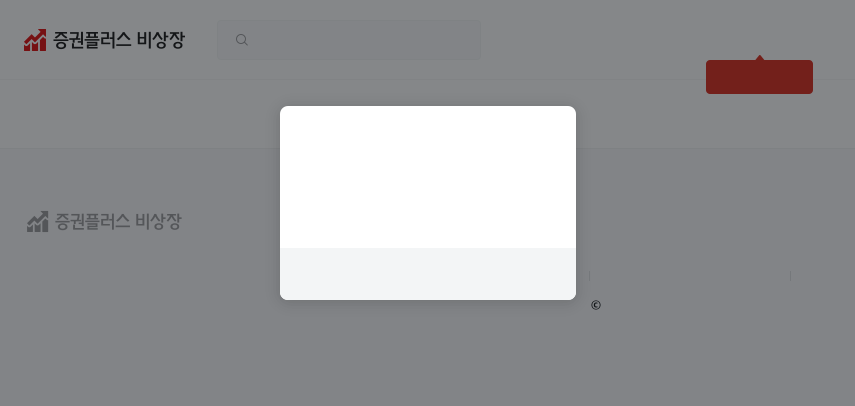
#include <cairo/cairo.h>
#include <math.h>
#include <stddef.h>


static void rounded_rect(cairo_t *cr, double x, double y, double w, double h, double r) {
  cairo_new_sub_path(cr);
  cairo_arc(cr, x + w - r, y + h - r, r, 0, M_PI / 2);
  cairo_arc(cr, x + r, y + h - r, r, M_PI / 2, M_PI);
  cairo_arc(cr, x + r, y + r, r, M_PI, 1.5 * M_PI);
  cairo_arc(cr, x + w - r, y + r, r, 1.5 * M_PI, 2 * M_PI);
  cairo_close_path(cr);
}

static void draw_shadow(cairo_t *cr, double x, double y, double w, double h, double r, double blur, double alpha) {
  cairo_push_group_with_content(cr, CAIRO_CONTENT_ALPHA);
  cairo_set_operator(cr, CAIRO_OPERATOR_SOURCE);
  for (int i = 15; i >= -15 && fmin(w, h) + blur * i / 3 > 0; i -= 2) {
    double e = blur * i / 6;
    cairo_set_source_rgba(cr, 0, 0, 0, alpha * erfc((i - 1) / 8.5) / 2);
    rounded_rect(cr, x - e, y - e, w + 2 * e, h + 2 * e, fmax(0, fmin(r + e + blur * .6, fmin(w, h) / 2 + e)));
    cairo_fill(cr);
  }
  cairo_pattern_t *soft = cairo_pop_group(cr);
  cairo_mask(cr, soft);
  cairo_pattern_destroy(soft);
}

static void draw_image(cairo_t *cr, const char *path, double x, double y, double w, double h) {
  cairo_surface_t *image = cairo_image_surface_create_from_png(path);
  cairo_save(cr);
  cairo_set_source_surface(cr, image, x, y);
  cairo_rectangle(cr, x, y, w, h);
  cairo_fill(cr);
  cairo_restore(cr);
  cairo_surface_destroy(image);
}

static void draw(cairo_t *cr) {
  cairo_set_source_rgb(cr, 133 / 255.0, 135 / 255.0, 137 / 255.0);
  cairo_paint(cr);
  cairo_set_source_rgb(cr, 129 / 255.0, 131 / 255.0, 133 / 255.0);
  cairo_rectangle(cr, 0, 79, 855, 1);
  cairo_fill(cr);
  draw_image(cr, "images/1.png", 24, 29, 161, 22);
  cairo_set_source_rgb(cr, 130 / 255.0, 132 / 255.0, 135 / 255.0);
  rounded_rect(cr, 217.5, 20.5, 263, 39, 3.5);
  cairo_fill_preserve(cr);
  cairo_set_source_rgb(cr, 127 / 255.0, 130 / 255.0, 132 / 255.0);
  cairo_set_line_width(cr, 1);
  cairo_stroke(cr);
  draw_image(cr, "images/2.png", 236, 34, 12, 12);
  cairo_set_source_rgb(cr, 115 / 255.0, 32 / 255.0, 27 / 255.0);
  rounded_rect(cr, 706, 60, 107, 34, 4);
  cairo_fill(cr);
  draw_image(cr, "images/3.png", 755, 55, 10, 5);
  cairo_set_source_rgb(cr, 130 / 255.0, 132 / 255.0, 135 / 255.0);
  cairo_rectangle(cr, 0, 149, 855, 257);
  cairo_fill(cr);
  cairo_set_source_rgb(cr, 126 / 255.0, 129 / 255.0, 131 / 255.0);
  cairo_rectangle(cr, 0, 148, 855, 1);
  cairo_fill(cr);
  draw_image(cr, "images/4.png", 27, 210, 155, 23);
  cairo_set_source_rgb(cr, 117 / 255.0, 120 / 255.0, 123 / 255.0);
  cairo_rectangle(cr, 589, 271, 1, 10);
  cairo_fill(cr);
  cairo_rectangle(cr, 790, 271, 1, 10);
  cairo_fill(cr);
  draw_image(cr, "images/5.png", 591, 300, 10, 10);
  cairo_set_source_rgb(cr, 0, 0, 0);
  draw_shadow(cr, 280, 108, 296, 194, 8, 8, 0.16);
  cairo_set_source_rgb(cr, 1, 1, 1);
  rounded_rect(cr, 280, 106, 296, 194, 8);
  cairo_fill(cr);
  cairo_set_source_rgb(cr, 243 / 255.0, 245 / 255.0, 246 / 255.0);
  cairo_new_path(cr);
  cairo_move_to(cr, 280, 248);
  cairo_line_to(cr, 576, 248);
  cairo_line_to(cr, 576, 292);
  cairo_curve_to(cr, 576, 296.5, 572.5, 300, 568, 300);
  cairo_line_to(cr, 288, 300);
  cairo_curve_to(cr, 283.5, 300, 280, 296.5, 280, 292);
  cairo_close_path(cr);
  cairo_fill(cr);
}

int main(void) {
  cairo_surface_t *surface = cairo_image_surface_create(CAIRO_FORMAT_RGB24, 855, 406);
  cairo_t *cr = cairo_create(surface);
  cairo_font_options_t *options = cairo_font_options_create();
  cairo_font_options_set_hint_metrics(options, CAIRO_HINT_METRICS_OFF);
  cairo_font_options_set_hint_style(options, CAIRO_HINT_STYLE_NONE);
  cairo_set_font_options(cr, options);
  cairo_set_miter_limit(cr, 4);
  draw(cr);
  cairo_surface_write_to_png(surface, "out.png");
  cairo_font_options_destroy(options);
  cairo_destroy(cr);
  cairo_surface_destroy(surface);
  return 0;
}
